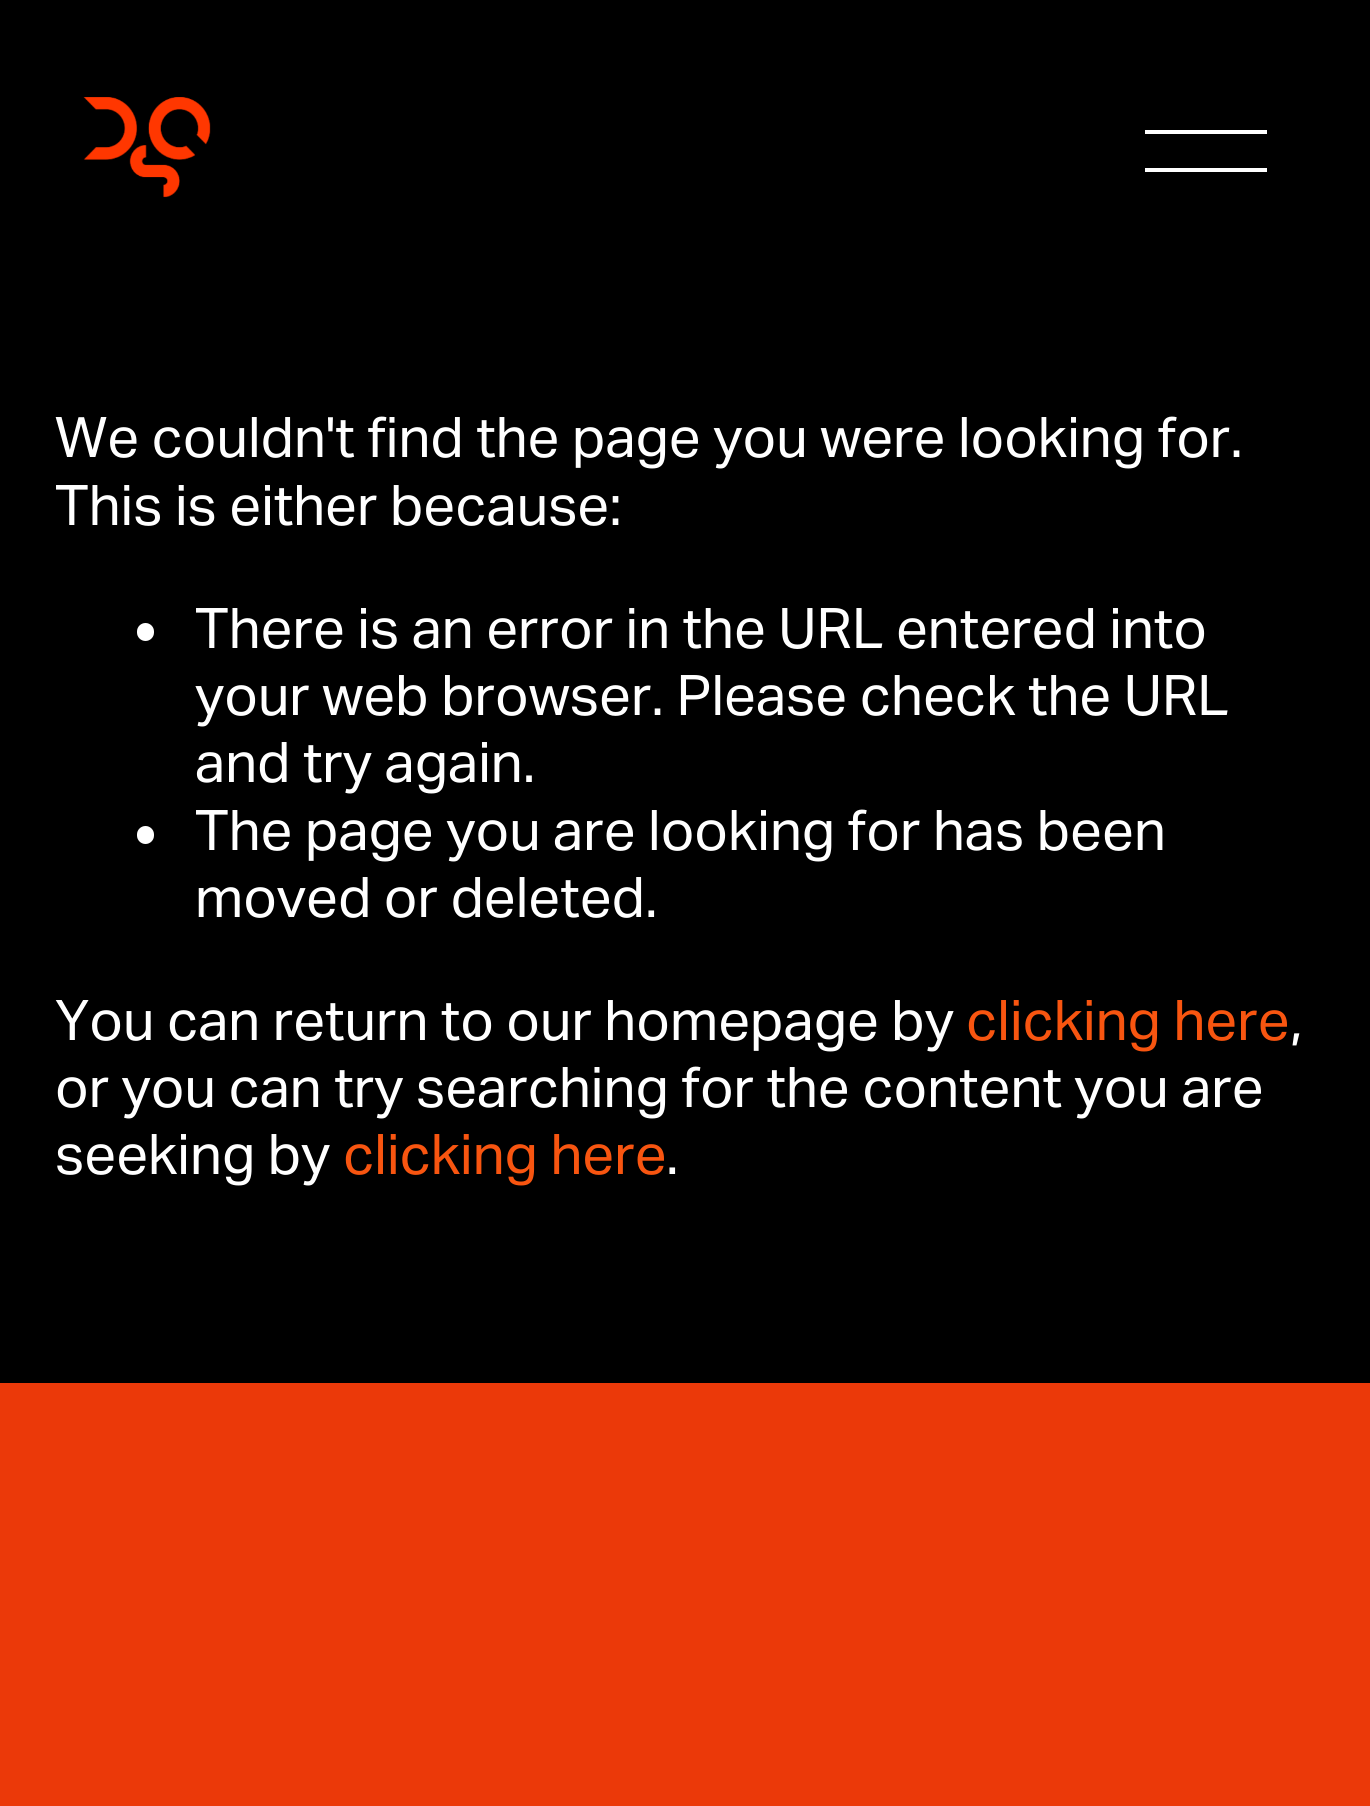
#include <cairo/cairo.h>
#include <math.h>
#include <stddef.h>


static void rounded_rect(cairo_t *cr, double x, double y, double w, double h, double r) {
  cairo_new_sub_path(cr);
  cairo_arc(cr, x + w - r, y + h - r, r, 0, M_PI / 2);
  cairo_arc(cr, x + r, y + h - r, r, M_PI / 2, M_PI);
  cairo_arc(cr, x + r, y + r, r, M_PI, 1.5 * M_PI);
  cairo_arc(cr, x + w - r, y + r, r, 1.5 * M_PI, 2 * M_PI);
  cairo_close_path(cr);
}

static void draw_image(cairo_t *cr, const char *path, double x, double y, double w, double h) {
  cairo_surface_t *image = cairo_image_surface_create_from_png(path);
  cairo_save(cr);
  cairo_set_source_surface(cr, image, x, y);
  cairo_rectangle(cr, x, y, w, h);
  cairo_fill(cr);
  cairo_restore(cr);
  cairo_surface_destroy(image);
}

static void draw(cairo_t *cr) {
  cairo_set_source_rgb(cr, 0, 0, 0);
  cairo_paint(cr);
  draw_image(cr, "images/1.png", 83, 97, 128, 101);
  cairo_set_source_rgb(cr, 1, 1, 1);
  cairo_rectangle(cr, 1145, 130, 122, 4);
  cairo_fill(cr);
  cairo_rectangle(cr, 1145, 168, 122, 4);
  cairo_fill(cr);
  rounded_rect(cr, 137, 623, 17, 18, 8.5);
  cairo_fill(cr);
  rounded_rect(cr, 137, 826, 17, 18, 8.5);
  cairo_fill(cr);
  cairo_set_source_rgb(cr, 235 / 255.0, 57 / 255.0, 9 / 255.0);
  cairo_rectangle(cr, 0, 1383, 1370, 423);
  cairo_fill(cr);
  cairo_select_font_face(cr, "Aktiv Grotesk", CAIRO_FONT_SLANT_NORMAL, CAIRO_FONT_WEIGHT_NORMAL);
  cairo_set_font_size(cr, 56);
  cairo_set_source_rgb(cr, 1, 1, 1);
  cairo_move_to(cr, 55, 457);
  cairo_show_text(cr, "We couldn't find the page you were looking for.");
  cairo_move_to(cr, 55, 525);
  cairo_show_text(cr, "This is either because:");
  cairo_move_to(cr, 195, 648);
  cairo_show_text(cr, "There is an error in the URL entered into");
  cairo_move_to(cr, 195, 715);
  cairo_show_text(cr, "your web browser. Please check the URL");
  cairo_move_to(cr, 195, 782);
  cairo_show_text(cr, "and try again.");
  cairo_move_to(cr, 195, 850);
  cairo_show_text(cr, "The page you are looking for has been");
  cairo_move_to(cr, 195, 917);
  cairo_show_text(cr, "moved or deleted.");
  cairo_move_to(cr, 55, 1040);
  cairo_show_text(cr, "You can return to our homepage by");
  cairo_set_source_rgb(cr, 248 / 255.0, 85 / 255.0, 16 / 255.0);
  cairo_move_to(cr, 966, 1040);
  cairo_show_text(cr, "clicking here");
  cairo_set_source_rgb(cr, 1, 1, 1);
  cairo_move_to(cr, 1290, 1040);
  cairo_show_text(cr, ",");
  cairo_move_to(cr, 55, 1107);
  cairo_show_text(cr, "or you can try searching for the content you are");
  cairo_move_to(cr, 55, 1174);
  cairo_show_text(cr, "seeking by");
  cairo_set_source_rgb(cr, 248 / 255.0, 85 / 255.0, 16 / 255.0);
  cairo_move_to(cr, 343, 1174);
  cairo_show_text(cr, "clicking here");
  cairo_set_source_rgb(cr, 1, 1, 1);
  cairo_move_to(cr, 666, 1174);
  cairo_show_text(cr, ".");
}

int main(void) {
  cairo_surface_t *surface = cairo_image_surface_create(CAIRO_FORMAT_RGB24, 1370, 1806);
  cairo_t *cr = cairo_create(surface);
  cairo_font_options_t *options = cairo_font_options_create();
  cairo_font_options_set_hint_metrics(options, CAIRO_HINT_METRICS_OFF);
  cairo_font_options_set_hint_style(options, CAIRO_HINT_STYLE_NONE);
  cairo_set_font_options(cr, options);
  cairo_set_miter_limit(cr, 4);
  draw(cr);
  cairo_surface_write_to_png(surface, "out.png");
  cairo_font_options_destroy(options);
  cairo_destroy(cr);
  cairo_surface_destroy(surface);
  return 0;
}
